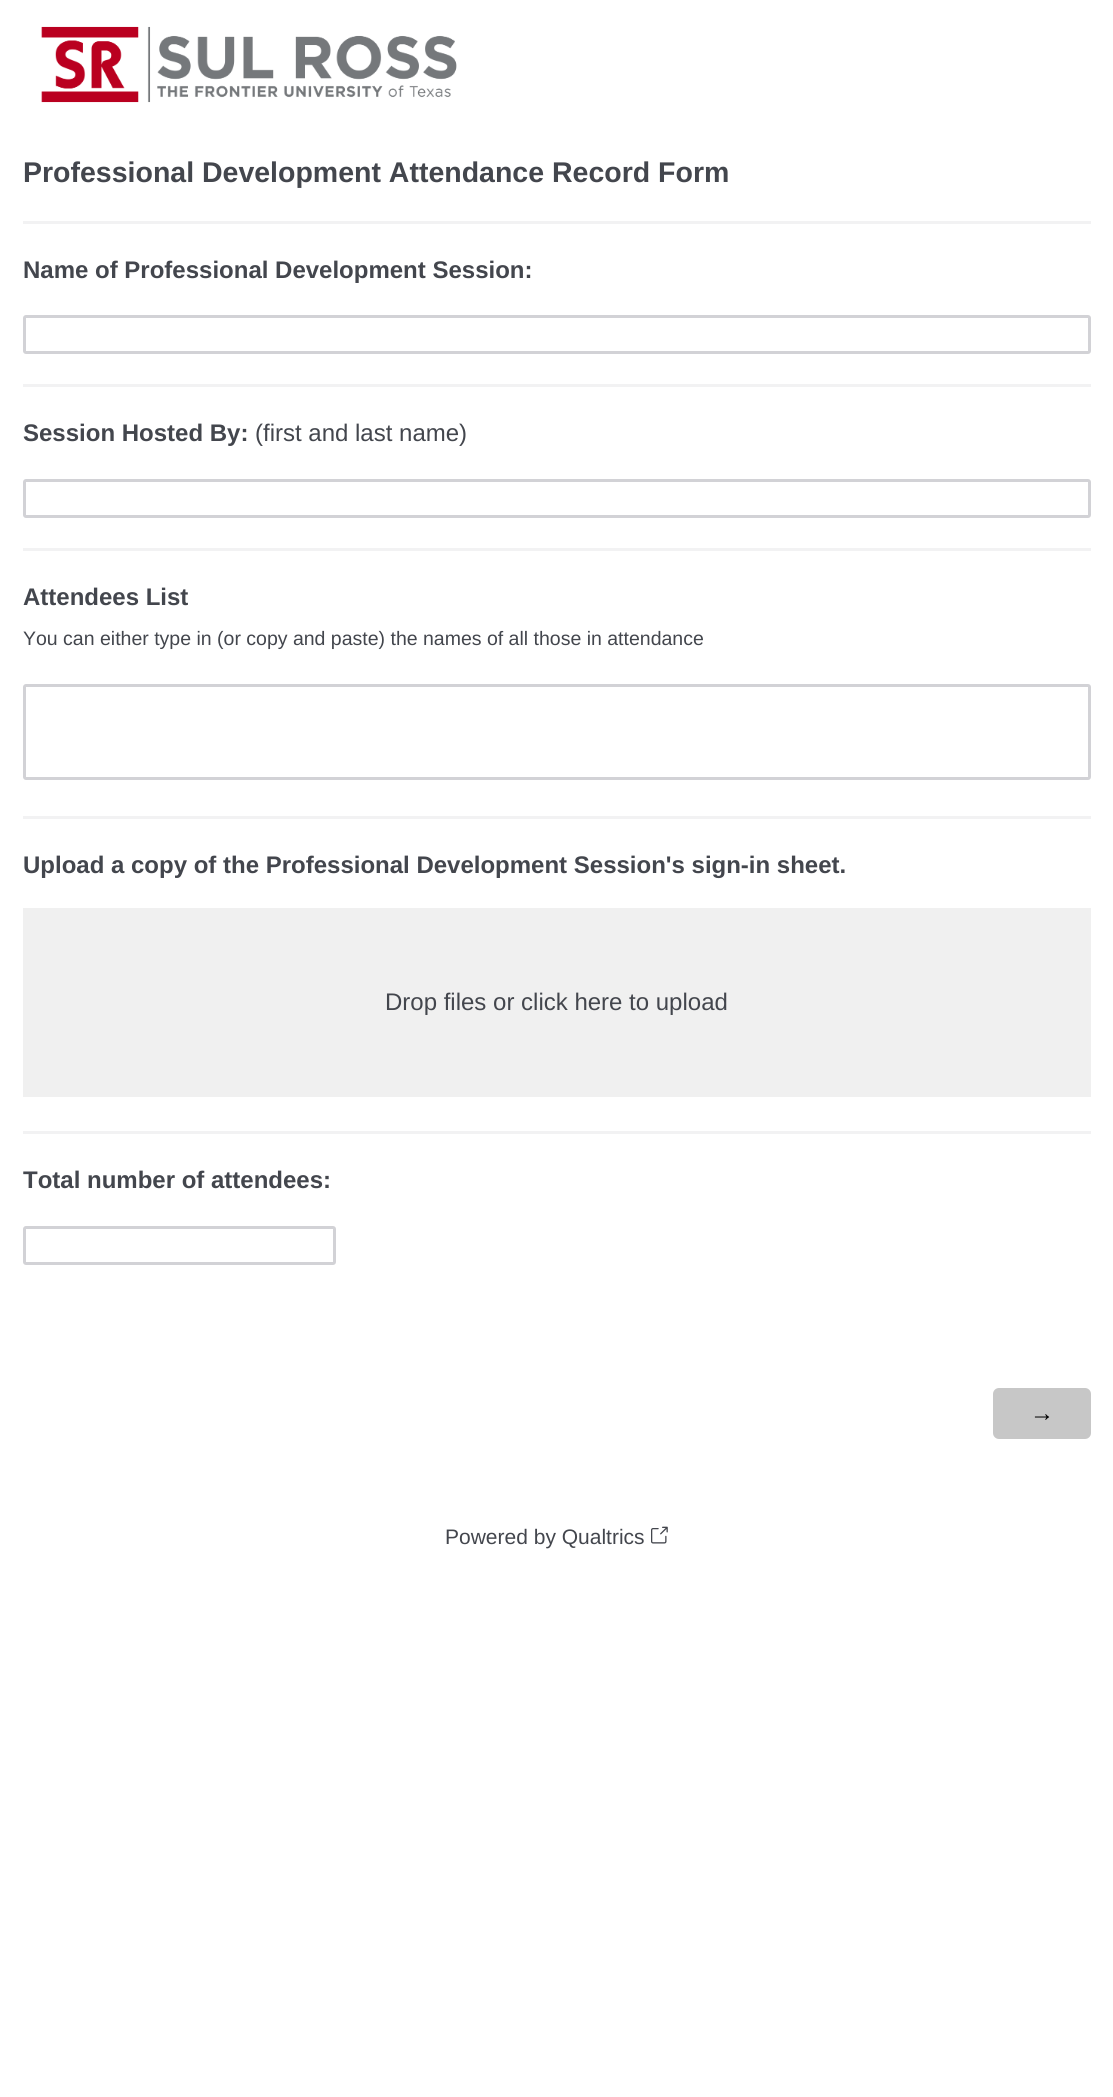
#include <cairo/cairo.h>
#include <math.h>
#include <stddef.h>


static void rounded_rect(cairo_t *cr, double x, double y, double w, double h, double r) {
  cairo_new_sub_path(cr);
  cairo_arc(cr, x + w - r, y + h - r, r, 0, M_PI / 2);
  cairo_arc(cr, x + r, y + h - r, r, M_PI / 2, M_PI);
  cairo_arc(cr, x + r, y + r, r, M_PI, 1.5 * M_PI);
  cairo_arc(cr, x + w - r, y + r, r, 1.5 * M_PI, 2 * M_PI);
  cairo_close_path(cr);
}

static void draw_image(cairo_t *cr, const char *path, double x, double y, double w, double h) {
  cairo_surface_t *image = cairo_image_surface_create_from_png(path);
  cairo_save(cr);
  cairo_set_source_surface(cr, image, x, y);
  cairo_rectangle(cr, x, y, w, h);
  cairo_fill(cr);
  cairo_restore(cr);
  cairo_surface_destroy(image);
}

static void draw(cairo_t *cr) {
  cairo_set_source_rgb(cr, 1, 1, 1);
  cairo_paint(cr);
  draw_image(cr, "images/1.png", 41, 26, 416, 77);
  cairo_set_source_rgb(cr, 242 / 255.0, 242 / 255.0, 243 / 255.0);
  cairo_rectangle(cr, 23, 221, 1068, 3);
  cairo_fill(cr);
  rounded_rect(cr, 24.5, 316.5, 1065, 36, 1.5);
  cairo_set_source_rgb(cr, 210 / 255.0, 210 / 255.0, 214 / 255.0);
  cairo_set_line_width(cr, 3);
  cairo_stroke(cr);
  cairo_set_source_rgb(cr, 242 / 255.0, 242 / 255.0, 243 / 255.0);
  cairo_rectangle(cr, 23, 384, 1068, 3);
  cairo_fill(cr);
  rounded_rect(cr, 24.5, 480.5, 1065, 36, 1.5);
  cairo_set_source_rgb(cr, 210 / 255.0, 210 / 255.0, 214 / 255.0);
  cairo_stroke(cr);
  cairo_set_source_rgb(cr, 242 / 255.0, 242 / 255.0, 243 / 255.0);
  cairo_rectangle(cr, 23, 548, 1068, 3);
  cairo_fill(cr);
  rounded_rect(cr, 24.5, 685.5, 1065, 93, 1.5);
  cairo_set_source_rgb(cr, 210 / 255.0, 210 / 255.0, 214 / 255.0);
  cairo_stroke(cr);
  cairo_set_source_rgb(cr, 242 / 255.0, 242 / 255.0, 243 / 255.0);
  cairo_rectangle(cr, 23, 816, 1068, 3);
  cairo_fill(cr);
  cairo_set_source_rgb(cr, 240 / 255.0, 240 / 255.0, 240 / 255.0);
  cairo_rectangle(cr, 23, 908, 1068, 189);
  cairo_fill(cr);
  cairo_set_source_rgb(cr, 242 / 255.0, 242 / 255.0, 243 / 255.0);
  cairo_rectangle(cr, 23, 1131, 1068, 3);
  cairo_fill(cr);
  rounded_rect(cr, 24.5, 1227.5, 310, 36, 1.5);
  cairo_set_source_rgb(cr, 210 / 255.0, 210 / 255.0, 214 / 255.0);
  cairo_stroke(cr);
  cairo_set_source_rgb(cr, 199 / 255.0, 199 / 255.0, 199 / 255.0);
  rounded_rect(cr, 993, 1388, 98, 51, 6);
  cairo_fill(cr);
  draw_image(cr, "images/2.png", 651, 1526, 17, 18);
  cairo_select_font_face(cr, "Liberation Sans", CAIRO_FONT_SLANT_NORMAL, CAIRO_FONT_WEIGHT_BOLD);
  cairo_set_font_size(cr, 28.5);
  cairo_set_source_rgb(cr, 67 / 255.0, 70 / 255.0, 77 / 255.0);
  cairo_move_to(cr, 23, 182);
  cairo_show_text(cr, "Professional Development Attendance Record Form");
  cairo_set_font_size(cr, 24);
  cairo_move_to(cr, 23, 278);
  cairo_show_text(cr, "Name of Professional Development Session:");
  cairo_move_to(cr, 23, 441);
  cairo_show_text(cr, "Session Hosted By:");
  cairo_select_font_face(cr, "Liberation Sans", CAIRO_FONT_SLANT_NORMAL, CAIRO_FONT_WEIGHT_NORMAL);
  cairo_move_to(cr, 255, 441);
  cairo_show_text(cr, "(first and last name)");
  cairo_select_font_face(cr, "Liberation Sans", CAIRO_FONT_SLANT_NORMAL, CAIRO_FONT_WEIGHT_BOLD);
  cairo_move_to(cr, 23, 605);
  cairo_show_text(cr, "Attendees List");
  cairo_select_font_face(cr, "Liberation Sans", CAIRO_FONT_SLANT_NORMAL, CAIRO_FONT_WEIGHT_NORMAL);
  cairo_set_font_size(cr, 19.5);
  cairo_move_to(cr, 23, 645);
  cairo_show_text(cr, "You can either type in (or copy and paste) the names of all those in attendance");
  cairo_select_font_face(cr, "Liberation Sans", CAIRO_FONT_SLANT_NORMAL, CAIRO_FONT_WEIGHT_BOLD);
  cairo_set_font_size(cr, 24);
  cairo_move_to(cr, 23, 873);
  cairo_show_text(cr, "Upload a copy of the Professional Development Session's sign-in sheet.");
  cairo_select_font_face(cr, "Liberation Sans", CAIRO_FONT_SLANT_NORMAL, CAIRO_FONT_WEIGHT_NORMAL);
  cairo_move_to(cr, 385, 1010);
  cairo_show_text(cr, "Drop files or click here to upload");
  cairo_select_font_face(cr, "Liberation Sans", CAIRO_FONT_SLANT_NORMAL, CAIRO_FONT_WEIGHT_BOLD);
  cairo_move_to(cr, 23, 1188);
  cairo_show_text(cr, "Total number of attendees:");
  cairo_select_font_face(cr, "Liberation Sans", CAIRO_FONT_SLANT_NORMAL, CAIRO_FONT_WEIGHT_NORMAL);
  cairo_set_source_rgb(cr, 0, 0, 0);
  cairo_move_to(cr, 1030, 1421);
  cairo_show_text(cr, "→");
  cairo_set_font_size(cr, 21);
  cairo_set_source_rgb(cr, 67 / 255.0, 70 / 255.0, 77 / 255.0);
  cairo_move_to(cr, 445, 1544);
  cairo_show_text(cr, "Powered by Qualtrics");
}

int main(void) {
  cairo_surface_t *surface = cairo_image_surface_create(CAIRO_FORMAT_RGB24, 1113, 2097);
  cairo_t *cr = cairo_create(surface);
  cairo_font_options_t *options = cairo_font_options_create();
  cairo_font_options_set_hint_metrics(options, CAIRO_HINT_METRICS_OFF);
  cairo_font_options_set_hint_style(options, CAIRO_HINT_STYLE_NONE);
  cairo_set_font_options(cr, options);
  cairo_set_miter_limit(cr, 4);
  draw(cr);
  cairo_surface_write_to_png(surface, "out.png");
  cairo_font_options_destroy(options);
  cairo_destroy(cr);
  cairo_surface_destroy(surface);
  return 0;
}
